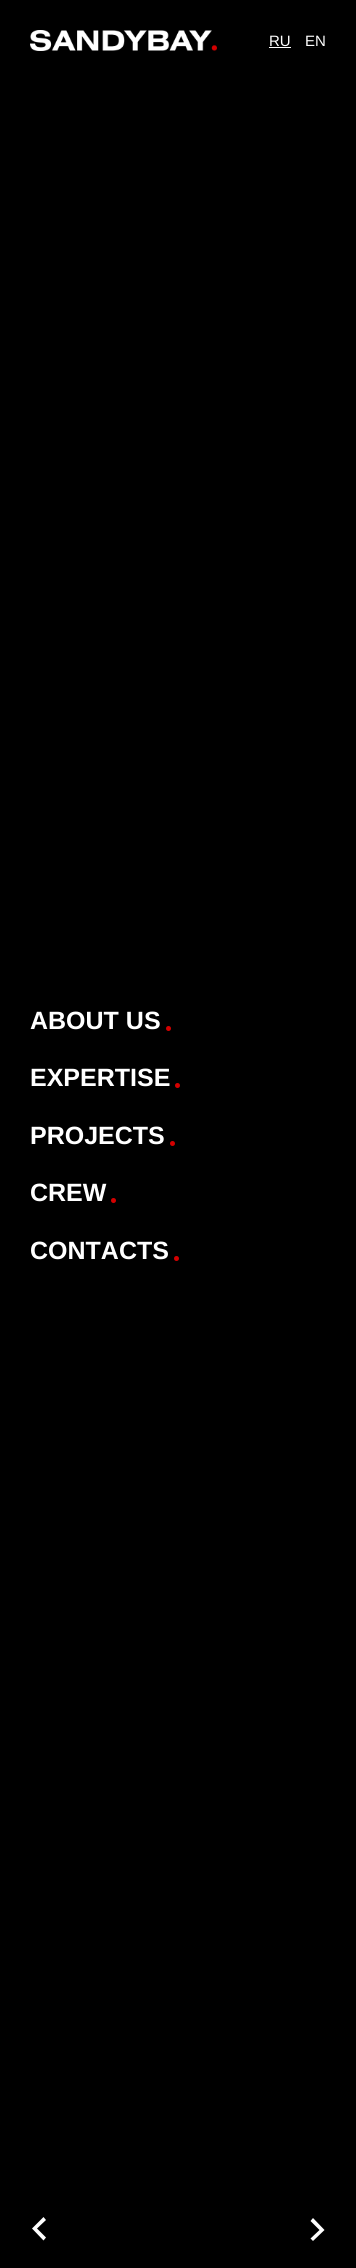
#include <cairo/cairo.h>
#include <math.h>
#include <stddef.h>


static void draw_image(cairo_t *cr, const char *path, double x, double y, double w, double h) {
  cairo_surface_t *image = cairo_image_surface_create_from_png(path);
  cairo_save(cr);
  cairo_set_source_surface(cr, image, x, y);
  cairo_rectangle(cr, x, y, w, h);
  cairo_fill(cr);
  cairo_restore(cr);
  cairo_surface_destroy(image);
}

static void draw(cairo_t *cr) {
  cairo_set_source_rgb(cr, 0, 0, 0);
  cairo_paint(cr);
  draw_image(cr, "images/1.png", 30, 30, 187, 21);
  cairo_set_source_rgb(cr, 1, 1, 1);
  cairo_rectangle(cr, 269, 47, 22, 1);
  cairo_fill(cr);
  cairo_set_source_rgb(cr, 212 / 255.0, 0, 0);
  cairo_arc(cr, 168.5, 1028.5, 2.5, 0, 2 * M_PI);
  cairo_fill(cr);
  cairo_arc(cr, 177.5, 1085.5, 2.5, 0, 2 * M_PI);
  cairo_fill(cr);
  cairo_arc(cr, 172.5, 1143.5, 2.5, 0, 2 * M_PI);
  cairo_fill(cr);
  cairo_arc(cr, 113.5, 1200.5, 2.5, 0, 2 * M_PI);
  cairo_fill(cr);
  cairo_arc(cr, 176.5, 1258.5, 2.5, 0, 2 * M_PI);
  cairo_fill(cr);
  cairo_set_source_rgb(cr, 1, 1, 1);
  cairo_new_path(cr);
  cairo_move_to(cr, 46, 2237.5);
  cairo_line_to(cr, 43.5, 2240.5);
  cairo_line_to(cr, 32, 2228.5);
  cairo_line_to(cr, 43.5, 2217);
  cairo_line_to(cr, 46, 2220);
  cairo_line_to(cr, 37, 2228.5);
  cairo_close_path(cr);
  cairo_fill(cr);
  cairo_new_path(cr);
  cairo_move_to(cr, 310.5, 2221);
  cairo_line_to(cr, 313, 2218);
  cairo_line_to(cr, 324.5, 2230);
  cairo_line_to(cr, 313, 2241);
  cairo_line_to(cr, 310.5, 2238.5);
  cairo_line_to(cr, 319.5, 2230);
  cairo_close_path(cr);
  cairo_fill(cr);
  cairo_select_font_face(cr, "Liberation Sans", CAIRO_FONT_SLANT_NORMAL, CAIRO_FONT_WEIGHT_NORMAL);
  cairo_set_font_size(cr, 15);
  cairo_move_to(cr, 269, 46);
  cairo_show_text(cr, "RU");
  cairo_move_to(cr, 305, 46);
  cairo_show_text(cr, "EN");
  cairo_select_font_face(cr, "Liberation Sans", CAIRO_FONT_SLANT_NORMAL, CAIRO_FONT_WEIGHT_BOLD);
  cairo_set_font_size(cr, 25);
  cairo_move_to(cr, 30, 1029);
  cairo_show_text(cr, "ABOUT US");
  cairo_move_to(cr, 30, 1086);
  cairo_show_text(cr, "EXPERTISE");
  cairo_move_to(cr, 30, 1144);
  cairo_show_text(cr, "PROJECTS");
  cairo_move_to(cr, 30, 1201);
  cairo_show_text(cr, "CREW");
  cairo_move_to(cr, 30, 1259);
  cairo_show_text(cr, "CONTACTS");
}

int main(void) {
  cairo_surface_t *surface = cairo_image_surface_create(CAIRO_FORMAT_RGB24, 356, 2268);
  cairo_t *cr = cairo_create(surface);
  cairo_font_options_t *options = cairo_font_options_create();
  cairo_font_options_set_hint_metrics(options, CAIRO_HINT_METRICS_OFF);
  cairo_font_options_set_hint_style(options, CAIRO_HINT_STYLE_NONE);
  cairo_set_font_options(cr, options);
  cairo_set_miter_limit(cr, 4);
  draw(cr);
  cairo_surface_write_to_png(surface, "out.png");
  cairo_font_options_destroy(options);
  cairo_destroy(cr);
  cairo_surface_destroy(surface);
  return 0;
}
